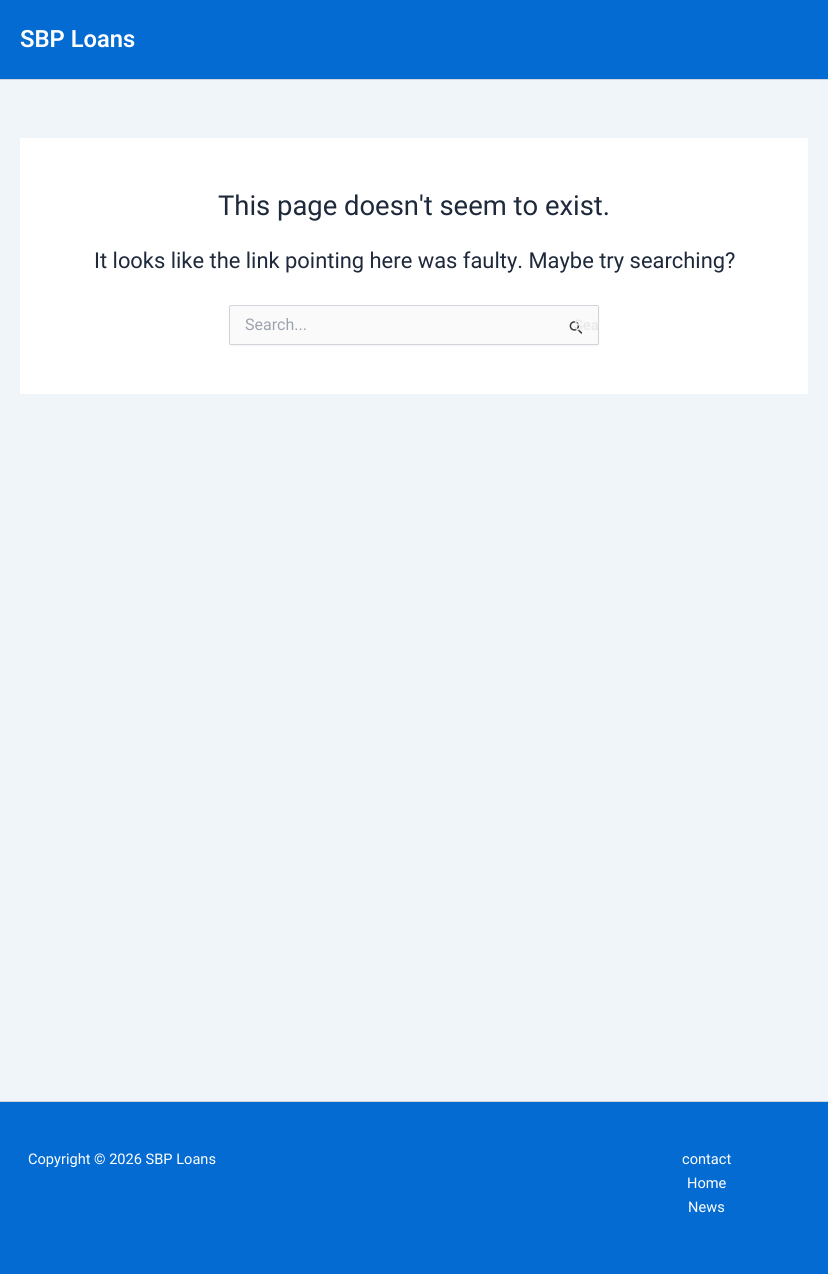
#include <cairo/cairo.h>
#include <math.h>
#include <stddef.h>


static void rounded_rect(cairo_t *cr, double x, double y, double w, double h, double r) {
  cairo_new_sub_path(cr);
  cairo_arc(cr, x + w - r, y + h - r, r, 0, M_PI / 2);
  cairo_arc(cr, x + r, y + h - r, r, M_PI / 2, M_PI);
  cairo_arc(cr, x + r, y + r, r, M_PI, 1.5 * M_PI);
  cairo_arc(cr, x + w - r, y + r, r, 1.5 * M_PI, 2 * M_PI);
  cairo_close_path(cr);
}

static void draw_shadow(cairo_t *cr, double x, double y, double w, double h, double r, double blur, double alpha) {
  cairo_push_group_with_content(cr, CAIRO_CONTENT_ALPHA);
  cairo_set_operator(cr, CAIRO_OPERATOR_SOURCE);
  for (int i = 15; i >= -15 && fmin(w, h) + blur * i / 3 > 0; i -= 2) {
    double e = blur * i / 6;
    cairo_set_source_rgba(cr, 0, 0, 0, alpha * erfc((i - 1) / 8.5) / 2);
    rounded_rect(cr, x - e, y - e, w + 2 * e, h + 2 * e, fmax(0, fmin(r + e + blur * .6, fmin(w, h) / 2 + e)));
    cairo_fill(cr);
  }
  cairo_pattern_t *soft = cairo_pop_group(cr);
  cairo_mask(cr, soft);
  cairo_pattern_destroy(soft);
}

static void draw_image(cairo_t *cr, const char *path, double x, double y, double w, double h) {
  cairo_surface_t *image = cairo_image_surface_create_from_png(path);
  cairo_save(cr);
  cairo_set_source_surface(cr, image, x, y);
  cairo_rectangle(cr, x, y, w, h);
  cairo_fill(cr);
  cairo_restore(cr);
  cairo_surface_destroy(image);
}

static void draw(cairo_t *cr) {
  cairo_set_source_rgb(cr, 240 / 255.0, 245 / 255.0, 250 / 255.0);
  cairo_paint(cr);
  cairo_set_source_rgb(cr, 4 / 255.0, 107 / 255.0, 210 / 255.0);
  cairo_rectangle(cr, 0, 0, 828, 79);
  cairo_fill(cr);
  cairo_set_source_rgb(cr, 209 / 255.0, 213 / 255.0, 219 / 255.0);
  cairo_rectangle(cr, 0, 79, 828, 1);
  cairo_fill(cr);
  cairo_set_source_rgb(cr, 1, 1, 1);
  cairo_rectangle(cr, 20, 138, 788, 256);
  cairo_fill(cr);
  cairo_set_source_rgb(cr, 0, 0, 0);
  draw_shadow(cr, 229, 306, 370, 40, 2, 1, 0.05);
  cairo_set_source_rgb(cr, 250 / 255.0, 250 / 255.0, 250 / 255.0);
  rounded_rect(cr, 229.5, 305.5, 369, 39, 1.5);
  cairo_fill_preserve(cr);
  cairo_set_source_rgb(cr, 209 / 255.0, 213 / 255.0, 219 / 255.0);
  cairo_set_line_width(cr, 1);
  cairo_stroke(cr);
  draw_image(cr, "images/1.png", 569, 321, 13, 13);
  cairo_set_source_rgb(cr, 4 / 255.0, 107 / 255.0, 210 / 255.0);
  cairo_rectangle(cr, 0, 1102, 828, 172);
  cairo_fill(cr);
  cairo_set_source_rgb(cr, 209 / 255.0, 213 / 255.0, 219 / 255.0);
  cairo_rectangle(cr, 0, 1101, 828, 1);
  cairo_fill(cr);
  cairo_select_font_face(cr, "Roboto SemiBold", CAIRO_FONT_SLANT_NORMAL, CAIRO_FONT_WEIGHT_NORMAL);
  cairo_set_font_size(cr, 23.75);
  cairo_set_source_rgb(cr, 1, 1, 1);
  cairo_move_to(cr, 20, 47);
  cairo_show_text(cr, "SBP Loans");
  cairo_select_font_face(cr, "Roboto", CAIRO_FONT_SLANT_NORMAL, CAIRO_FONT_WEIGHT_NORMAL);
  cairo_set_font_size(cr, 27.4);
  cairo_set_source_rgb(cr, 30 / 255.0, 41 / 255.0, 59 / 255.0);
  cairo_move_to(cr, 218, 215);
  cairo_show_text(cr, "This page doesn't seem to exist.");
  cairo_set_font_size(cr, 21.9);
  cairo_move_to(cr, 94, 268);
  cairo_show_text(cr, "It looks like the link pointing here was faulty. Maybe try searching?");
  cairo_set_font_size(cr, 16);
  cairo_set_source_rgb(cr, 156 / 255.0, 163 / 255.0, 175 / 255.0);
  cairo_move_to(cr, 245, 330);
  cairo_show_text(cr, "Search...");
  cairo_select_font_face(cr, "Roboto Medium", CAIRO_FONT_SLANT_NORMAL, CAIRO_FONT_WEIGHT_NORMAL);
  cairo_set_font_size(cr, 14.6);
  cairo_set_source_rgb(cr, 232 / 255.0, 232 / 255.0, 232 / 255.0);
  cairo_move_to(cr, 574, 330);
  cairo_show_text(cr, "Sea");
  cairo_select_font_face(cr, "Roboto", CAIRO_FONT_SLANT_NORMAL, CAIRO_FONT_WEIGHT_NORMAL);
  cairo_set_source_rgb(cr, 1, 1, 1);
  cairo_move_to(cr, 28, 1164);
  cairo_show_text(cr, "Copyright © 2026 SBP Loans");
  cairo_move_to(cr, 682, 1164);
  cairo_show_text(cr, "contact");
  cairo_move_to(cr, 687, 1188);
  cairo_show_text(cr, "Home");
  cairo_move_to(cr, 688, 1212);
  cairo_show_text(cr, "News");
}

int main(void) {
  cairo_surface_t *surface = cairo_image_surface_create(CAIRO_FORMAT_RGB24, 828, 1274);
  cairo_t *cr = cairo_create(surface);
  cairo_font_options_t *options = cairo_font_options_create();
  cairo_font_options_set_hint_metrics(options, CAIRO_HINT_METRICS_OFF);
  cairo_font_options_set_hint_style(options, CAIRO_HINT_STYLE_NONE);
  cairo_set_font_options(cr, options);
  cairo_set_miter_limit(cr, 4);
  draw(cr);
  cairo_surface_write_to_png(surface, "out.png");
  cairo_font_options_destroy(options);
  cairo_destroy(cr);
  cairo_surface_destroy(surface);
  return 0;
}
